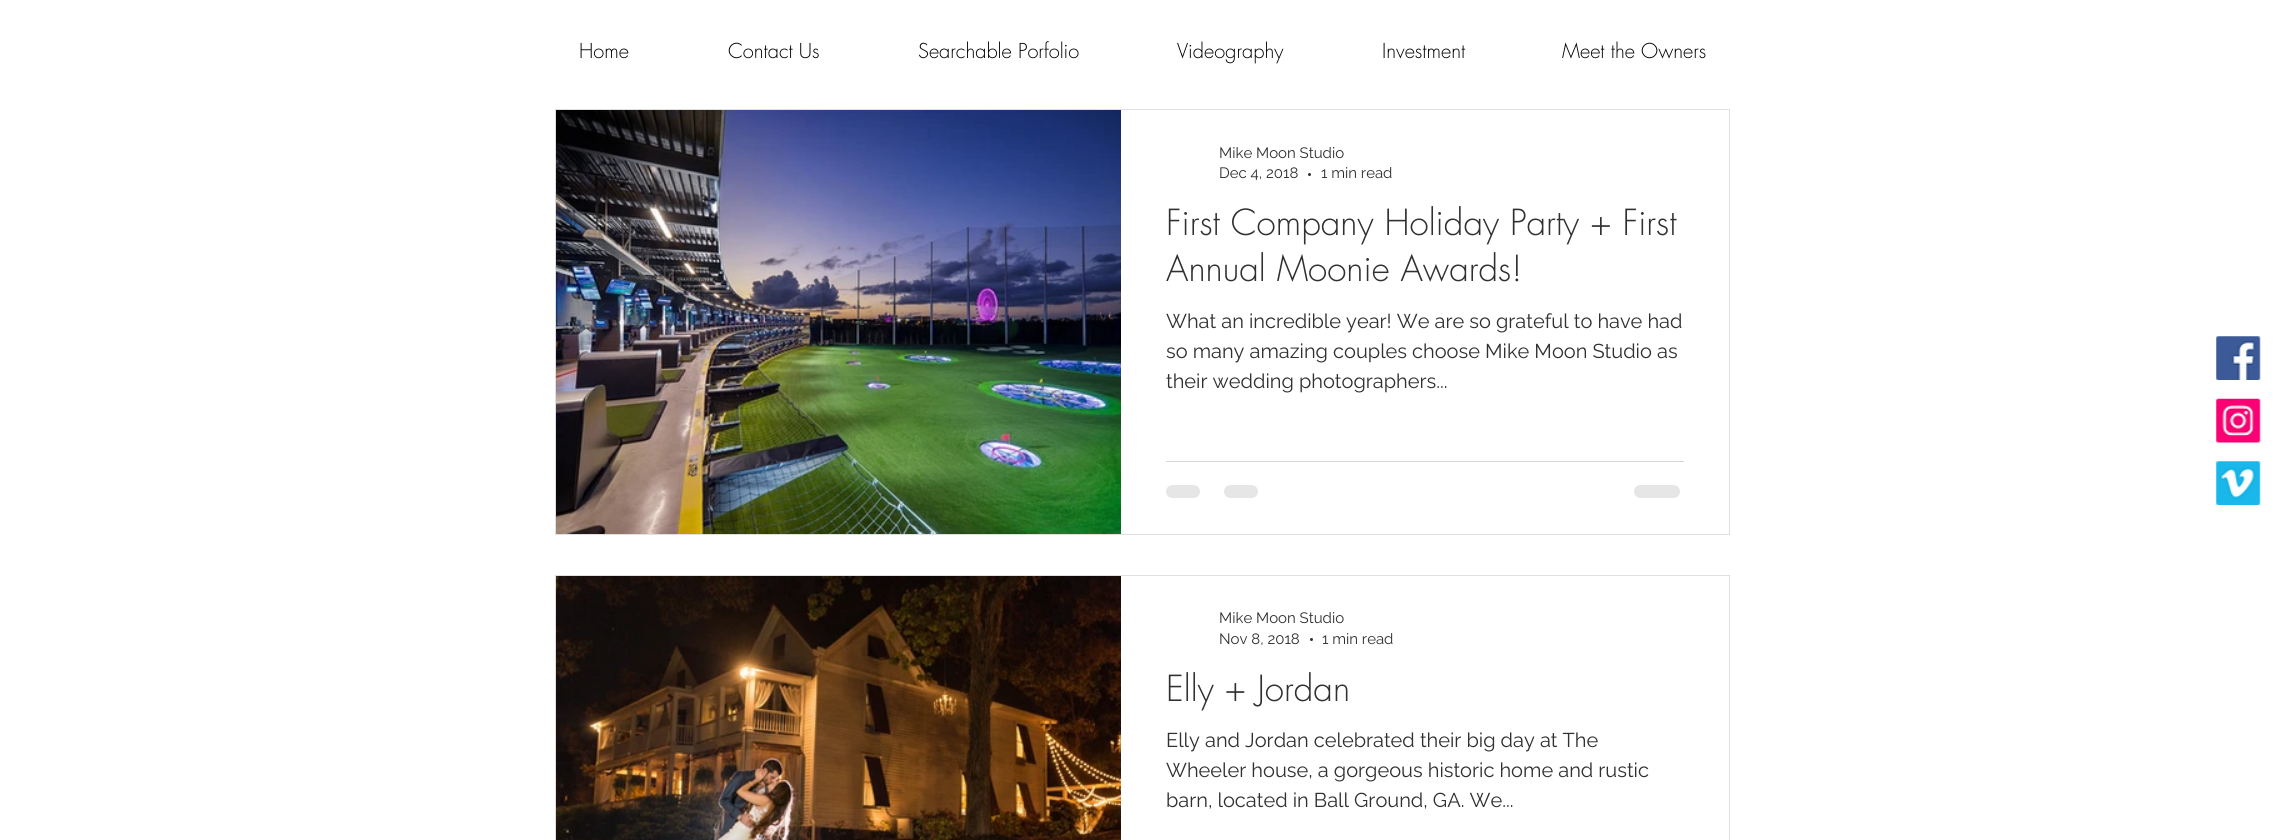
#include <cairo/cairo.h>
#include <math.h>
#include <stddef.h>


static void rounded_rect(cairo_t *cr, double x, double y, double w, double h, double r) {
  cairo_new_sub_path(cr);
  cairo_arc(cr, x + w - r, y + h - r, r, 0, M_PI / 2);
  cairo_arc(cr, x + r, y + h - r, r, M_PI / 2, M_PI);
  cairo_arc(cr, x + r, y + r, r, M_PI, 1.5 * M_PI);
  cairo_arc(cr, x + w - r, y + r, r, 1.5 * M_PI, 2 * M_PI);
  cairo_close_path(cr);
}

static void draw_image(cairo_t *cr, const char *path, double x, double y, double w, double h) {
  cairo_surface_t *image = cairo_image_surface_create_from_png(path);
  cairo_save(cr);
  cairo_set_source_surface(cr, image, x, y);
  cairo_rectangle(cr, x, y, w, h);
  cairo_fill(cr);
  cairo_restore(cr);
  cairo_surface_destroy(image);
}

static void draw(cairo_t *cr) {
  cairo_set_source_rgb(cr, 1, 1, 1);
  cairo_paint(cr);
  cairo_rectangle(cr, 555.5, 109.5, 1174, 425);
  cairo_set_source_rgb(cr, 223 / 255.0, 223 / 255.0, 223 / 255.0);
  cairo_set_line_width(cr, 1);
  cairo_stroke(cr);
  draw_image(cr, "images/1.png", 556, 110, 565, 424);
  cairo_set_source_rgb(cr, 48 / 255.0, 48 / 255.0, 48 / 255.0);
  cairo_arc(cr, 1309.5, 174.5, 1.5, 0, 2 * M_PI);
  cairo_fill(cr);
  cairo_set_source_rgb(cr, 214 / 255.0, 214 / 255.0, 214 / 255.0);
  cairo_rectangle(cr, 1166, 461, 518, 1);
  cairo_fill(cr);
  cairo_set_source_rgb(cr, 230 / 255.0, 230 / 255.0, 230 / 255.0);
  rounded_rect(cr, 1166, 485, 34, 13, 6.5);
  cairo_fill(cr);
  rounded_rect(cr, 1224, 485, 34, 13, 6.5);
  cairo_fill(cr);
  rounded_rect(cr, 1634, 485, 46, 13, 6.5);
  cairo_fill(cr);
  cairo_rectangle(cr, 555.5, 575.5, 1174, 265);
  cairo_set_source_rgb(cr, 223 / 255.0, 223 / 255.0, 223 / 255.0);
  cairo_stroke(cr);
  draw_image(cr, "images/2.png", 556, 576, 565, 264);
  cairo_set_source_rgb(cr, 48 / 255.0, 48 / 255.0, 48 / 255.0);
  cairo_arc(cr, 1311.5, 639.5, 1.5, 0, 2 * M_PI);
  cairo_fill(cr);
  draw_image(cr, "images/3.png", 2216, 336, 45, 44);
  draw_image(cr, "images/4.png", 2216, 398, 45, 45);
  draw_image(cr, "images/5.png", 2216, 461, 45, 44);
  cairo_select_font_face(cr, "futura Light", CAIRO_FONT_SLANT_NORMAL, CAIRO_FONT_WEIGHT_NORMAL);
  cairo_set_font_size(cr, 20);
  cairo_set_source_rgb(cr, 0, 0, 0);
  cairo_move_to(cr, 579, 58);
  cairo_show_text(cr, "Home");
  cairo_move_to(cr, 728, 58);
  cairo_show_text(cr, "Contact Us");
  cairo_move_to(cr, 918, 58);
  cairo_show_text(cr, "Searchable Porfolio");
  cairo_move_to(cr, 1177, 58);
  cairo_show_text(cr, "Videography");
  cairo_move_to(cr, 1382, 58);
  cairo_show_text(cr, "Investment");
  cairo_move_to(cr, 1562, 58);
  cairo_show_text(cr, "Meet the Owners");
  cairo_select_font_face(cr, "Raleway", CAIRO_FONT_SLANT_NORMAL, CAIRO_FONT_WEIGHT_NORMAL);
  cairo_set_font_size(cr, 15);
  cairo_set_source_rgb(cr, 48 / 255.0, 48 / 255.0, 48 / 255.0);
  cairo_move_to(cr, 1219, 158);
  cairo_show_text(cr, "Mike Moon Studio");
  cairo_move_to(cr, 1219, 178);
  cairo_show_text(cr, "Dec 4, 2018");
  cairo_move_to(cr, 1321, 178);
  cairo_show_text(cr, "1 min read");
  cairo_select_font_face(cr, "futura Light", CAIRO_FONT_SLANT_NORMAL, CAIRO_FONT_WEIGHT_NORMAL);
  cairo_set_font_size(cr, 35);
  cairo_move_to(cr, 1166, 235);
  cairo_show_text(cr, "First Company Holiday Party + First");
  cairo_move_to(cr, 1166, 281);
  cairo_show_text(cr, "Annual Moonie Awards!");
  cairo_select_font_face(cr, "Raleway", CAIRO_FONT_SLANT_NORMAL, CAIRO_FONT_WEIGHT_NORMAL);
  cairo_set_font_size(cr, 20);
  cairo_move_to(cr, 1166, 328);
  cairo_show_text(cr, "What an incredible year! We are so grateful to have had");
  cairo_move_to(cr, 1166, 358);
  cairo_show_text(cr, "so many amazing couples choose Mike Moon Studio as");
  cairo_move_to(cr, 1166, 388);
  cairo_show_text(cr, "their wedding photographers...");
  cairo_set_font_size(cr, 15);
  cairo_move_to(cr, 1219, 623);
  cairo_show_text(cr, "Mike Moon Studio");
  cairo_move_to(cr, 1219, 644);
  cairo_show_text(cr, "Nov 8, 2018");
  cairo_move_to(cr, 1322, 644);
  cairo_show_text(cr, "1 min read");
  cairo_select_font_face(cr, "futura Light", CAIRO_FONT_SLANT_NORMAL, CAIRO_FONT_WEIGHT_NORMAL);
  cairo_set_font_size(cr, 35);
  cairo_move_to(cr, 1166, 701);
  cairo_show_text(cr, "Elly + Jordan");
  cairo_select_font_face(cr, "Raleway", CAIRO_FONT_SLANT_NORMAL, CAIRO_FONT_WEIGHT_NORMAL);
  cairo_set_font_size(cr, 20);
  cairo_move_to(cr, 1166, 747);
  cairo_show_text(cr, "Elly and Jordan celebrated their big day at The");
  cairo_move_to(cr, 1166, 777);
  cairo_show_text(cr, "Wheeler house, a gorgeous historic home and rustic");
  cairo_move_to(cr, 1166, 807);
  cairo_show_text(cr, "barn, located in Ball Ground, GA. We...");
}

int main(void) {
  cairo_surface_t *surface = cairo_image_surface_create(CAIRO_FORMAT_RGB24, 2284, 840);
  cairo_t *cr = cairo_create(surface);
  cairo_font_options_t *options = cairo_font_options_create();
  cairo_font_options_set_hint_metrics(options, CAIRO_HINT_METRICS_OFF);
  cairo_font_options_set_hint_style(options, CAIRO_HINT_STYLE_NONE);
  cairo_set_font_options(cr, options);
  cairo_set_miter_limit(cr, 4);
  draw(cr);
  cairo_surface_write_to_png(surface, "out.png");
  cairo_font_options_destroy(options);
  cairo_destroy(cr);
  cairo_surface_destroy(surface);
  return 0;
}
